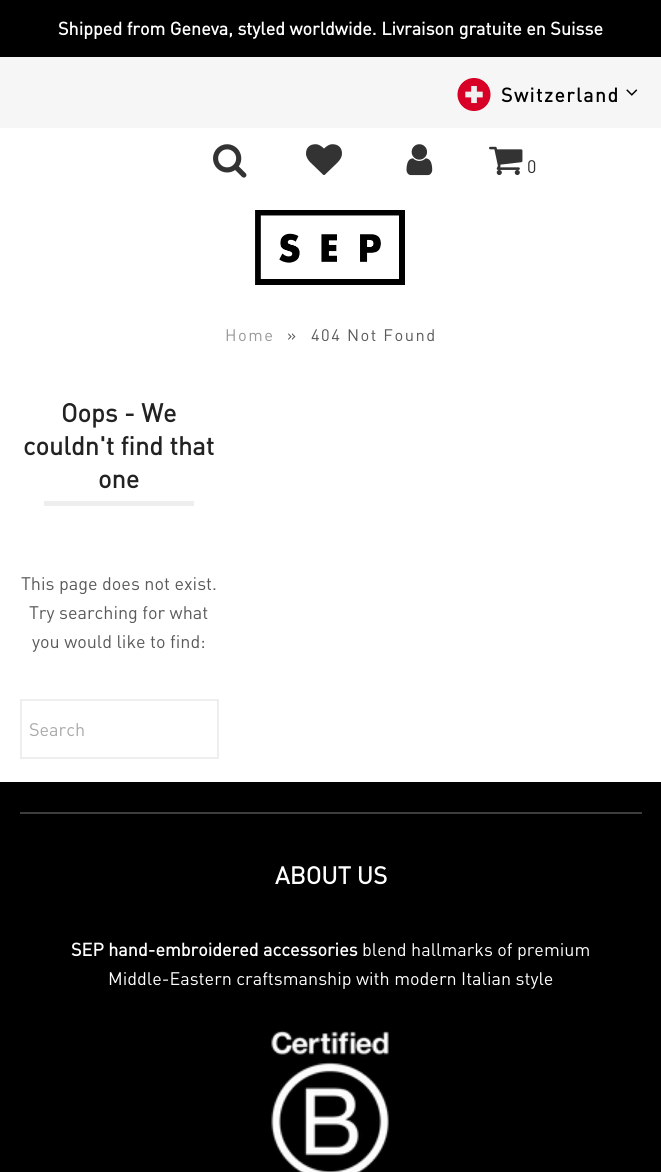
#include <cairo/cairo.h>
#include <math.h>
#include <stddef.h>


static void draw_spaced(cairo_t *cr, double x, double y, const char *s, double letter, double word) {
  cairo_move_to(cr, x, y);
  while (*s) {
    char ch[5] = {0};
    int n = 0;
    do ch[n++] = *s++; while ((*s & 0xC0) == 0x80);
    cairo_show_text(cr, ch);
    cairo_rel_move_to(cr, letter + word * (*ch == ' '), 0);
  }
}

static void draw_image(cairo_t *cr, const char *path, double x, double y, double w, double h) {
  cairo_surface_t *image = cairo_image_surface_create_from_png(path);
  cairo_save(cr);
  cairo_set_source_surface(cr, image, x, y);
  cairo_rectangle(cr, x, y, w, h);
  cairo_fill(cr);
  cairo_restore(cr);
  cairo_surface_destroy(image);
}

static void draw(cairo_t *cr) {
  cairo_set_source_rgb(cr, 1, 1, 1);
  cairo_paint(cr);
  cairo_set_source_rgb(cr, 0, 0, 0);
  cairo_rectangle(cr, 0, 0, 661, 57);
  cairo_fill(cr);
  cairo_set_source_rgb(cr, 246 / 255.0, 246 / 255.0, 246 / 255.0);
  cairo_rectangle(cr, 0, 57, 661, 71);
  cairo_fill(cr);
  draw_image(cr, "images/1.png", 457, 78, 34, 33);
  draw_image(cr, "images/2.png", 626, 89, 12, 7);
  draw_image(cr, "images/3.png", 213, 144, 34, 34);
  draw_image(cr, "images/4.png", 306, 144, 36, 31);
  draw_image(cr, "images/5.png", 406, 144, 27, 32);
  draw_image(cr, "images/6.png", 489, 146, 34, 30);
  draw_image(cr, "images/7.png", 255, 210, 150, 75);
  cairo_set_source_rgb(cr, 238 / 255.0, 238 / 255.0, 238 / 255.0);
  cairo_rectangle(cr, 44, 501, 150, 5);
  cairo_fill(cr);
  cairo_rectangle(cr, 21, 700, 197, 58);
  cairo_stroke(cr);
  cairo_set_source_rgb(cr, 0, 0, 0);
  cairo_rectangle(cr, 0, 782, 661, 390);
  cairo_fill(cr);
  cairo_set_source_rgb(cr, 61 / 255.0, 61 / 255.0, 61 / 255.0);
  cairo_rectangle(cr, 20, 812, 622, 2);
  cairo_fill(cr);
  draw_image(cr, "images/8.png", 271, 1030, 118, 142);
  cairo_select_font_face(cr, "DIN", CAIRO_FONT_SLANT_NORMAL, CAIRO_FONT_WEIGHT_BOLD);
  cairo_set_font_size(cr, 18);
  cairo_set_source_rgb(cr, 1, 1, 1);
  cairo_move_to(cr, 58, 35);
  cairo_show_text(cr, "Shipped from Geneva, styled worldwide. Livraison gratuite en Suisse");
  cairo_set_font_size(cr, 19.5);
  cairo_set_source_rgb(cr, 0, 0, 0);
  draw_spaced(cr, 501, 102, "Switzerland", 1.5, 0);
  cairo_select_font_face(cr, "DIN", CAIRO_FONT_SLANT_NORMAL, CAIRO_FONT_WEIGHT_NORMAL);
  cairo_set_font_size(cr, 18);
  cairo_set_source_rgb(cr, 51 / 255.0, 51 / 255.0, 51 / 255.0);
  cairo_move_to(cr, 527, 173);
  cairo_show_text(cr, "0");
  cairo_set_font_size(cr, 16.5);
  cairo_set_source_rgb(cr, 153 / 255.0, 153 / 255.0, 153 / 255.0);
  draw_spaced(cr, 225, 341, "Home", 1.5, 0);
  cairo_set_source_rgb(cr, 90 / 255.0, 90 / 255.0, 90 / 255.0);
  draw_spaced(cr, 287, 341, "»", 1.5, 0);
  draw_spaced(cr, 311, 341, "404 Not Found", 1.5, 0);
  cairo_select_font_face(cr, "DIN", CAIRO_FONT_SLANT_NORMAL, CAIRO_FONT_WEIGHT_BOLD);
  cairo_set_font_size(cr, 25.5);
  cairo_set_source_rgb(cr, 34 / 255.0, 34 / 255.0, 34 / 255.0);
  cairo_move_to(cr, 61, 422);
  cairo_show_text(cr, "Oops - We");
  cairo_move_to(cr, 23, 455);
  cairo_show_text(cr, "couldn't find that");
  cairo_move_to(cr, 98, 488);
  cairo_show_text(cr, "one");
  cairo_select_font_face(cr, "DIN", CAIRO_FONT_SLANT_NORMAL, CAIRO_FONT_WEIGHT_NORMAL);
  cairo_set_font_size(cr, 18);
  cairo_set_source_rgb(cr, 90 / 255.0, 90 / 255.0, 90 / 255.0);
  cairo_move_to(cr, 21, 590);
  cairo_show_text(cr, "This page does not exist.");
  cairo_move_to(cr, 29, 619);
  cairo_show_text(cr, "Try searching for what");
  cairo_move_to(cr, 32, 648);
  cairo_show_text(cr, "you would like to find:");
  cairo_set_source_rgb(cr, 170 / 255.0, 170 / 255.0, 170 / 255.0);
  cairo_move_to(cr, 29, 736);
  cairo_show_text(cr, "Search");
  cairo_select_font_face(cr, "DIN", CAIRO_FONT_SLANT_NORMAL, CAIRO_FONT_WEIGHT_BOLD);
  cairo_set_font_size(cr, 24);
  cairo_set_source_rgb(cr, 1, 1, 1);
  cairo_move_to(cr, 275, 884);
  cairo_show_text(cr, "ABOUT US");
  cairo_set_font_size(cr, 18);
  cairo_move_to(cr, 71, 956);
  cairo_show_text(cr, "SEP hand-embroidered accessories");
  cairo_select_font_face(cr, "DIN", CAIRO_FONT_SLANT_NORMAL, CAIRO_FONT_WEIGHT_NORMAL);
  cairo_move_to(cr, 362, 956);
  cairo_show_text(cr, "blend hallmarks of premium");
  cairo_move_to(cr, 108, 985);
  cairo_show_text(cr, "Middle-Eastern craftsmanship with modern Italian style");
}

int main(void) {
  cairo_surface_t *surface = cairo_image_surface_create(CAIRO_FORMAT_RGB24, 661, 1172);
  cairo_t *cr = cairo_create(surface);
  cairo_font_options_t *options = cairo_font_options_create();
  cairo_font_options_set_hint_metrics(options, CAIRO_HINT_METRICS_OFF);
  cairo_font_options_set_hint_style(options, CAIRO_HINT_STYLE_NONE);
  cairo_set_font_options(cr, options);
  cairo_set_miter_limit(cr, 4);
  draw(cr);
  cairo_surface_write_to_png(surface, "out.png");
  cairo_font_options_destroy(options);
  cairo_destroy(cr);
  cairo_surface_destroy(surface);
  return 0;
}
